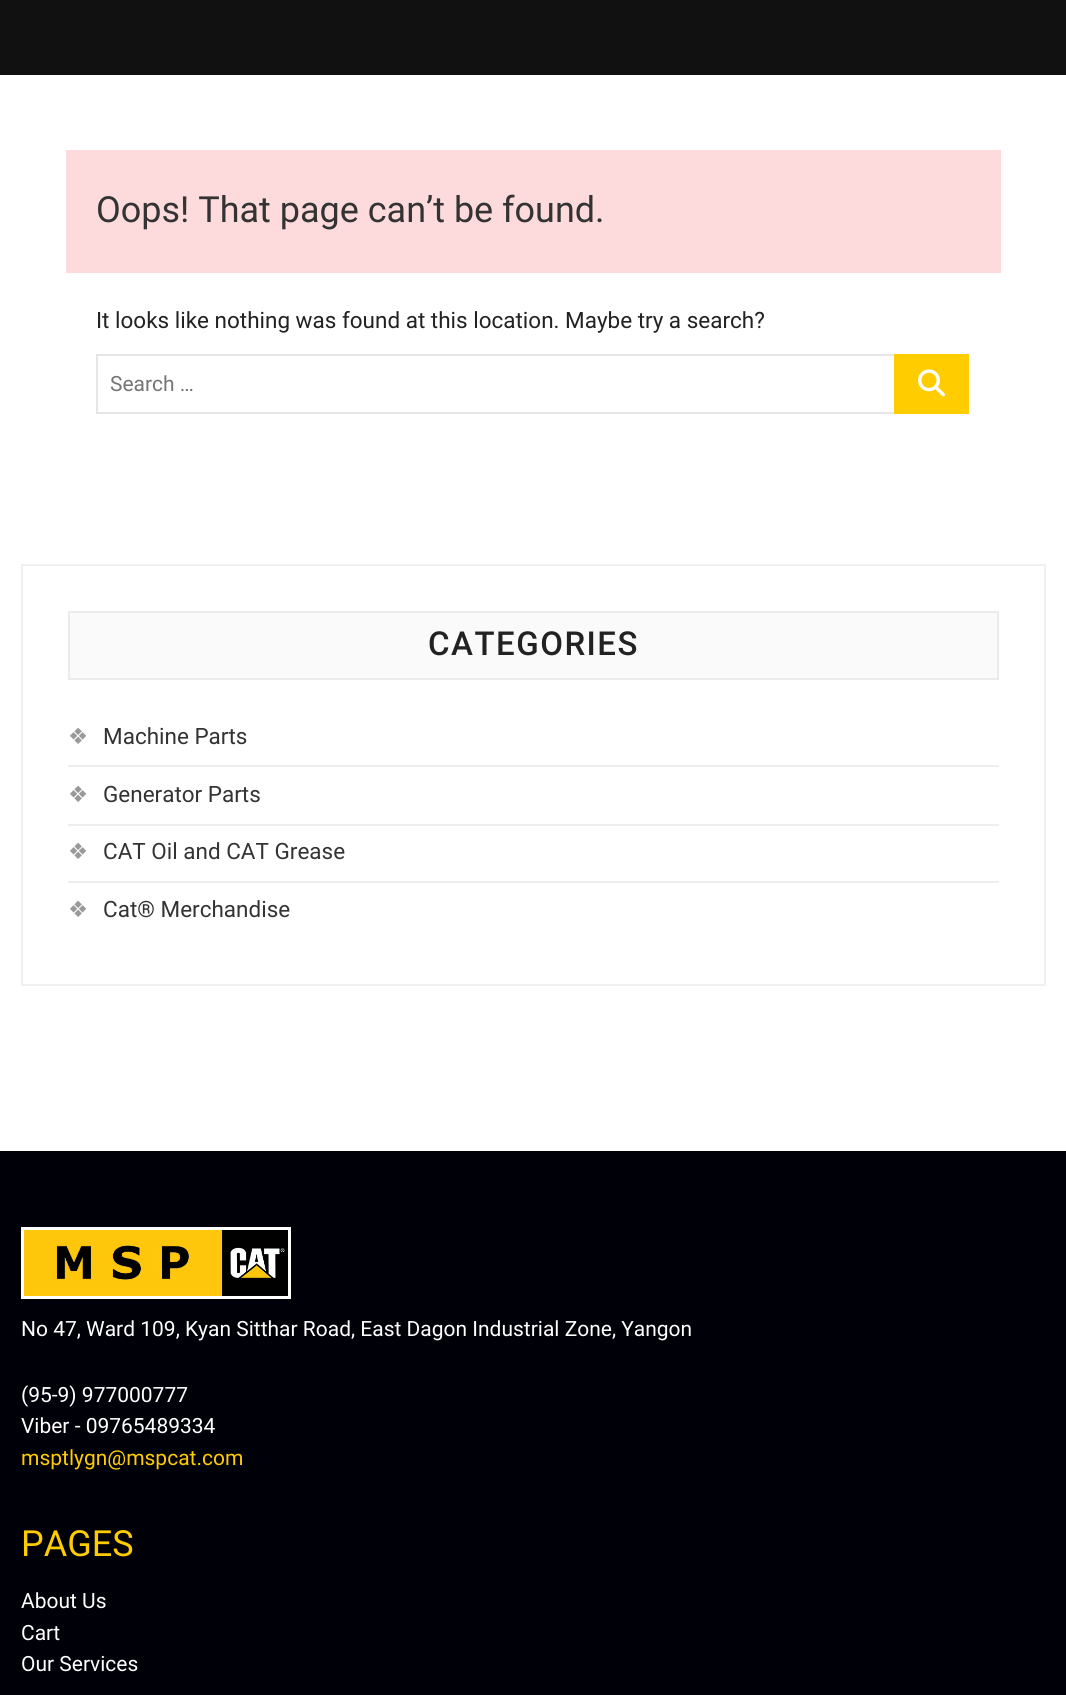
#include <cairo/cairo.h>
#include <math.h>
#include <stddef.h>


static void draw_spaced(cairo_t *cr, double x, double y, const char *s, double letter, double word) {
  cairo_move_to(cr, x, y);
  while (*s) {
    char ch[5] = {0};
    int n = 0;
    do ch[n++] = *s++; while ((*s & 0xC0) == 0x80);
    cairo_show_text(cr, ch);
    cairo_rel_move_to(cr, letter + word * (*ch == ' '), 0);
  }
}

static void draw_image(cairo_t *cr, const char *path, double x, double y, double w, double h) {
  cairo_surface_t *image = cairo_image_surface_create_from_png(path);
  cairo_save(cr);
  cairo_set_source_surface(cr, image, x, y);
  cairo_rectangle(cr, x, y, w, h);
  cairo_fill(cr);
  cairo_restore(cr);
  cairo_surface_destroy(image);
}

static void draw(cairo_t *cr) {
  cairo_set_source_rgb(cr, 1, 1, 1);
  cairo_paint(cr);
  cairo_set_source_rgb(cr, 17 / 255.0, 17 / 255.0, 17 / 255.0);
  cairo_rectangle(cr, 0, 0, 1066, 75);
  cairo_fill(cr);
  cairo_set_source_rgb(cr, 253 / 255.0, 219 / 255.0, 221 / 255.0);
  cairo_rectangle(cr, 66, 150, 935, 123);
  cairo_fill(cr);
  cairo_rectangle(cr, 97, 355, 798, 58);
  cairo_set_source_rgb(cr, 230 / 255.0, 230 / 255.0, 230 / 255.0);
  cairo_stroke(cr);
  cairo_set_source_rgb(cr, 1, 204 / 255.0, 0);
  cairo_rectangle(cr, 894, 354, 75, 60);
  cairo_fill(cr);
  draw_image(cr, "images/1.png", 918, 369, 27, 28);
  cairo_rectangle(cr, 22, 565, 1023, 420);
  cairo_set_source_rgb(cr, 240 / 255.0, 240 / 255.0, 240 / 255.0);
  cairo_stroke(cr);
  cairo_set_source_rgb(cr, 250 / 255.0, 250 / 255.0, 250 / 255.0);
  cairo_rectangle(cr, 69, 612, 929, 67);
  cairo_fill_preserve(cr);
  cairo_set_source_rgb(cr, 235 / 255.0, 235 / 255.0, 235 / 255.0);
  cairo_stroke(cr);
  cairo_set_source_rgb(cr, 238 / 255.0, 238 / 255.0, 238 / 255.0);
  cairo_rectangle(cr, 68, 765, 931, 2);
  cairo_fill(cr);
  cairo_rectangle(cr, 68, 824, 931, 2);
  cairo_fill(cr);
  cairo_rectangle(cr, 68, 881, 931, 2);
  cairo_fill(cr);
  cairo_set_source_rgb(cr, 0, 0, 8 / 255.0);
  cairo_rectangle(cr, 0, 1151, 1066, 544);
  cairo_fill(cr);
  cairo_rectangle(cr, 22.5, 1228.5, 267, 69);
  cairo_set_source_rgb(cr, 1, 1, 1);
  cairo_set_line_width(cr, 3);
  cairo_stroke(cr);
  draw_image(cr, "images/2.png", 24, 1230, 264, 66);
  cairo_select_font_face(cr, "Roboto", CAIRO_FONT_SLANT_NORMAL, CAIRO_FONT_WEIGHT_NORMAL);
  cairo_set_font_size(cr, 36);
  cairo_set_source_rgb(cr, 51 / 255.0, 51 / 255.0, 51 / 255.0);
  cairo_move_to(cr, 96, 222);
  cairo_show_text(cr, "Oops! That page can’t be found.");
  cairo_set_font_size(cr, 22.5);
  cairo_set_source_rgb(cr, 34 / 255.0, 34 / 255.0, 34 / 255.0);
  cairo_move_to(cr, 96, 328);
  cairo_show_text(cr, "It looks like nothing was found at this location. Maybe try a search?");
  cairo_set_font_size(cr, 21);
  cairo_set_source_rgb(cr, 117 / 255.0, 117 / 255.0, 117 / 255.0);
  cairo_move_to(cr, 110, 391);
  cairo_show_text(cr, "Search …");
  cairo_select_font_face(cr, "Roboto Medium", CAIRO_FONT_SLANT_NORMAL, CAIRO_FONT_WEIGHT_NORMAL);
  cairo_set_font_size(cr, 33);
  cairo_set_source_rgb(cr, 34 / 255.0, 34 / 255.0, 34 / 255.0);
  draw_spaced(cr, 428, 655, "CATEGORIES", 1.5, 0);
  cairo_select_font_face(cr, "DejaVu Sans", CAIRO_FONT_SLANT_NORMAL, CAIRO_FONT_WEIGHT_NORMAL);
  cairo_set_font_size(cr, 22.5);
  cairo_set_source_rgb(cr, 153 / 255.0, 153 / 255.0, 153 / 255.0);
  cairo_move_to(cr, 68, 744);
  cairo_show_text(cr, "❖");
  cairo_select_font_face(cr, "Roboto", CAIRO_FONT_SLANT_NORMAL, CAIRO_FONT_WEIGHT_NORMAL);
  cairo_set_source_rgb(cr, 51 / 255.0, 51 / 255.0, 51 / 255.0);
  cairo_move_to(cr, 103, 744);
  cairo_show_text(cr, "Machine Parts");
  cairo_select_font_face(cr, "DejaVu Sans", CAIRO_FONT_SLANT_NORMAL, CAIRO_FONT_WEIGHT_NORMAL);
  cairo_set_source_rgb(cr, 153 / 255.0, 153 / 255.0, 153 / 255.0);
  cairo_move_to(cr, 68, 802);
  cairo_show_text(cr, "❖");
  cairo_select_font_face(cr, "Roboto", CAIRO_FONT_SLANT_NORMAL, CAIRO_FONT_WEIGHT_NORMAL);
  cairo_set_source_rgb(cr, 51 / 255.0, 51 / 255.0, 51 / 255.0);
  cairo_move_to(cr, 103, 802);
  cairo_show_text(cr, "Generator Parts");
  cairo_select_font_face(cr, "DejaVu Sans", CAIRO_FONT_SLANT_NORMAL, CAIRO_FONT_WEIGHT_NORMAL);
  cairo_set_source_rgb(cr, 153 / 255.0, 153 / 255.0, 153 / 255.0);
  cairo_move_to(cr, 68, 859);
  cairo_show_text(cr, "❖");
  cairo_select_font_face(cr, "Roboto", CAIRO_FONT_SLANT_NORMAL, CAIRO_FONT_WEIGHT_NORMAL);
  cairo_set_source_rgb(cr, 51 / 255.0, 51 / 255.0, 51 / 255.0);
  cairo_move_to(cr, 103, 859);
  cairo_show_text(cr, "CAT Oil and CAT Grease");
  cairo_select_font_face(cr, "DejaVu Sans", CAIRO_FONT_SLANT_NORMAL, CAIRO_FONT_WEIGHT_NORMAL);
  cairo_set_source_rgb(cr, 153 / 255.0, 153 / 255.0, 153 / 255.0);
  cairo_move_to(cr, 68, 917);
  cairo_show_text(cr, "❖");
  cairo_select_font_face(cr, "Roboto", CAIRO_FONT_SLANT_NORMAL, CAIRO_FONT_WEIGHT_NORMAL);
  cairo_set_source_rgb(cr, 51 / 255.0, 51 / 255.0, 51 / 255.0);
  cairo_move_to(cr, 103, 917);
  cairo_show_text(cr, "Cat® Merchandise");
  cairo_set_font_size(cr, 21);
  cairo_set_source_rgb(cr, 1, 1, 1);
  cairo_move_to(cr, 21, 1336);
  cairo_show_text(cr, "No 47, Ward 109, Kyan Sitthar Road, East Dagon Industrial Zone, Yangon");
  cairo_move_to(cr, 21, 1402);
  cairo_show_text(cr, "(95-9) 977000777");
  cairo_move_to(cr, 21, 1433);
  cairo_show_text(cr, "Viber - 09765489334");
  cairo_set_source_rgb(cr, 1, 204 / 255.0, 0);
  cairo_move_to(cr, 21, 1465);
  cairo_show_text(cr, "msptlygn@mspcat.com");
  cairo_set_font_size(cr, 36);
  cairo_move_to(cr, 21, 1556);
  cairo_show_text(cr, "PAGES");
  cairo_set_font_size(cr, 21);
  cairo_set_source_rgb(cr, 1, 1, 1);
  cairo_move_to(cr, 21, 1608);
  cairo_show_text(cr, "About Us");
  cairo_move_to(cr, 21, 1640);
  cairo_show_text(cr, "Cart");
  cairo_move_to(cr, 21, 1671);
  cairo_show_text(cr, "Our Services");
}

int main(void) {
  cairo_surface_t *surface = cairo_image_surface_create(CAIRO_FORMAT_RGB24, 1066, 1695);
  cairo_t *cr = cairo_create(surface);
  cairo_font_options_t *options = cairo_font_options_create();
  cairo_font_options_set_hint_metrics(options, CAIRO_HINT_METRICS_OFF);
  cairo_font_options_set_hint_style(options, CAIRO_HINT_STYLE_NONE);
  cairo_set_font_options(cr, options);
  cairo_set_miter_limit(cr, 4);
  draw(cr);
  cairo_surface_write_to_png(surface, "out.png");
  cairo_font_options_destroy(options);
  cairo_destroy(cr);
  cairo_surface_destroy(surface);
  return 0;
}
